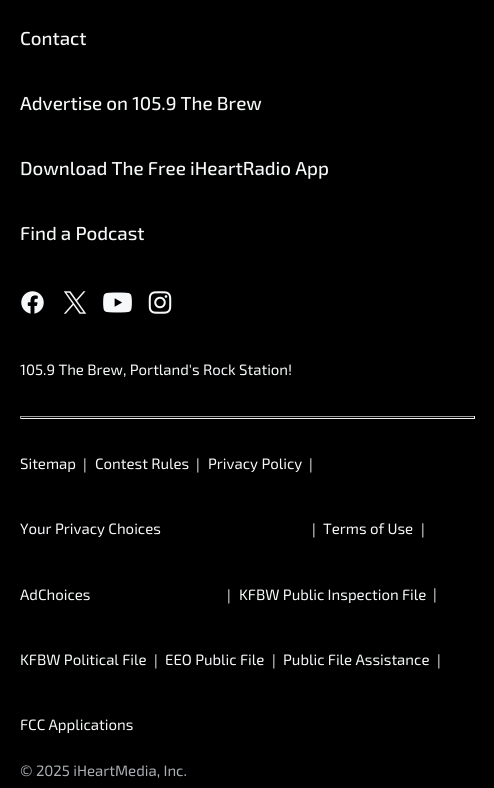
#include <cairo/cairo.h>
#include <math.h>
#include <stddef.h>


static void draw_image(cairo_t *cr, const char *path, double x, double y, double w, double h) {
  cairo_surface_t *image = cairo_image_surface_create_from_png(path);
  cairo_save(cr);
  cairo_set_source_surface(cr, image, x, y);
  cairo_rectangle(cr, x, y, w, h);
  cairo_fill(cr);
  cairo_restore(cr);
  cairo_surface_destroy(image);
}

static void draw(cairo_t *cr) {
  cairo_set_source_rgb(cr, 0, 0, 0);
  cairo_paint(cr);
  draw_image(cr, "images/1.png", 21, 291, 23, 23);
  draw_image(cr, "images/2.png", 63, 291, 24, 23);
  draw_image(cr, "images/3.png", 103, 292, 29, 21);
  draw_image(cr, "images/4.png", 148, 291, 24, 23);
  cairo_set_source_rgb(cr, 159 / 255.0, 159 / 255.0, 159 / 255.0);
  cairo_rectangle(cr, 20, 416, 455, 1);
  cairo_fill(cr);
  cairo_set_source_rgb(cr, 238 / 255.0, 238 / 255.0, 238 / 255.0);
  cairo_rectangle(cr, 474, 416, 1, 3);
  cairo_fill(cr);
  cairo_rectangle(cr, 20, 418, 455, 1);
  cairo_fill(cr);
  cairo_set_source_rgb(cr, 159 / 255.0, 159 / 255.0, 159 / 255.0);
  cairo_rectangle(cr, 20, 416, 1, 3);
  cairo_fill(cr);
  cairo_select_font_face(cr, "Exo 2 Medium", CAIRO_FONT_SLANT_NORMAL, CAIRO_FONT_WEIGHT_NORMAL);
  cairo_set_font_size(cr, 18.75);
  cairo_set_source_rgb(cr, 246 / 255.0, 248 / 255.0, 249 / 255.0);
  cairo_move_to(cr, 20, 45);
  cairo_show_text(cr, "Contact");
  cairo_move_to(cr, 20, 110);
  cairo_show_text(cr, "Advertise on 105.9 The Brew");
  cairo_move_to(cr, 20, 175);
  cairo_show_text(cr, "Download The Free iHeartRadio App");
  cairo_move_to(cr, 20, 240);
  cairo_show_text(cr, "Find a Podcast");
  cairo_select_font_face(cr, "Exo 2", CAIRO_FONT_SLANT_NORMAL, CAIRO_FONT_WEIGHT_NORMAL);
  cairo_set_font_size(cr, 15);
  cairo_move_to(cr, 20, 375);
  cairo_show_text(cr, "105.9 The Brew, Portland's Rock Station!");
  cairo_move_to(cr, 20, 469);
  cairo_show_text(cr, "Sitemap");
  cairo_move_to(cr, 83, 470);
  cairo_show_text(cr, "|");
  cairo_move_to(cr, 95, 469);
  cairo_show_text(cr, "Contest Rules");
  cairo_move_to(cr, 196, 470);
  cairo_show_text(cr, "|");
  cairo_move_to(cr, 208, 469);
  cairo_show_text(cr, "Privacy Policy");
  cairo_move_to(cr, 309, 470);
  cairo_show_text(cr, "|");
  cairo_move_to(cr, 20, 534);
  cairo_show_text(cr, "Your Privacy Choices");
  cairo_move_to(cr, 312, 535);
  cairo_show_text(cr, "|");
  cairo_move_to(cr, 323, 534);
  cairo_show_text(cr, "Terms of Use");
  cairo_move_to(cr, 421, 535);
  cairo_show_text(cr, "|");
  cairo_move_to(cr, 20, 600);
  cairo_show_text(cr, "AdChoices");
  cairo_move_to(cr, 227, 601);
  cairo_show_text(cr, "|");
  cairo_move_to(cr, 239, 600);
  cairo_show_text(cr, "KFBW Public Inspection File");
  cairo_move_to(cr, 433, 600);
  cairo_show_text(cr, "|");
  cairo_move_to(cr, 20, 665);
  cairo_show_text(cr, "KFBW Political File");
  cairo_move_to(cr, 154, 666);
  cairo_show_text(cr, "|");
  cairo_move_to(cr, 165, 665);
  cairo_show_text(cr, "EEO Public File");
  cairo_move_to(cr, 272, 666);
  cairo_show_text(cr, "|");
  cairo_move_to(cr, 283, 665);
  cairo_show_text(cr, "Public File Assistance");
  cairo_move_to(cr, 437, 666);
  cairo_show_text(cr, "|");
  cairo_move_to(cr, 20, 730);
  cairo_show_text(cr, "FCC Applications");
  cairo_set_source_rgb(cr, 169 / 255.0, 175 / 255.0, 178 / 255.0);
  cairo_move_to(cr, 20, 776);
  cairo_show_text(cr, "© 2025 iHeartMedia, Inc.");
}

int main(void) {
  cairo_surface_t *surface = cairo_image_surface_create(CAIRO_FORMAT_RGB24, 494, 788);
  cairo_t *cr = cairo_create(surface);
  cairo_font_options_t *options = cairo_font_options_create();
  cairo_font_options_set_hint_metrics(options, CAIRO_HINT_METRICS_OFF);
  cairo_font_options_set_hint_style(options, CAIRO_HINT_STYLE_NONE);
  cairo_set_font_options(cr, options);
  cairo_set_miter_limit(cr, 4);
  draw(cr);
  cairo_surface_write_to_png(surface, "out.png");
  cairo_font_options_destroy(options);
  cairo_destroy(cr);
  cairo_surface_destroy(surface);
  return 0;
}
